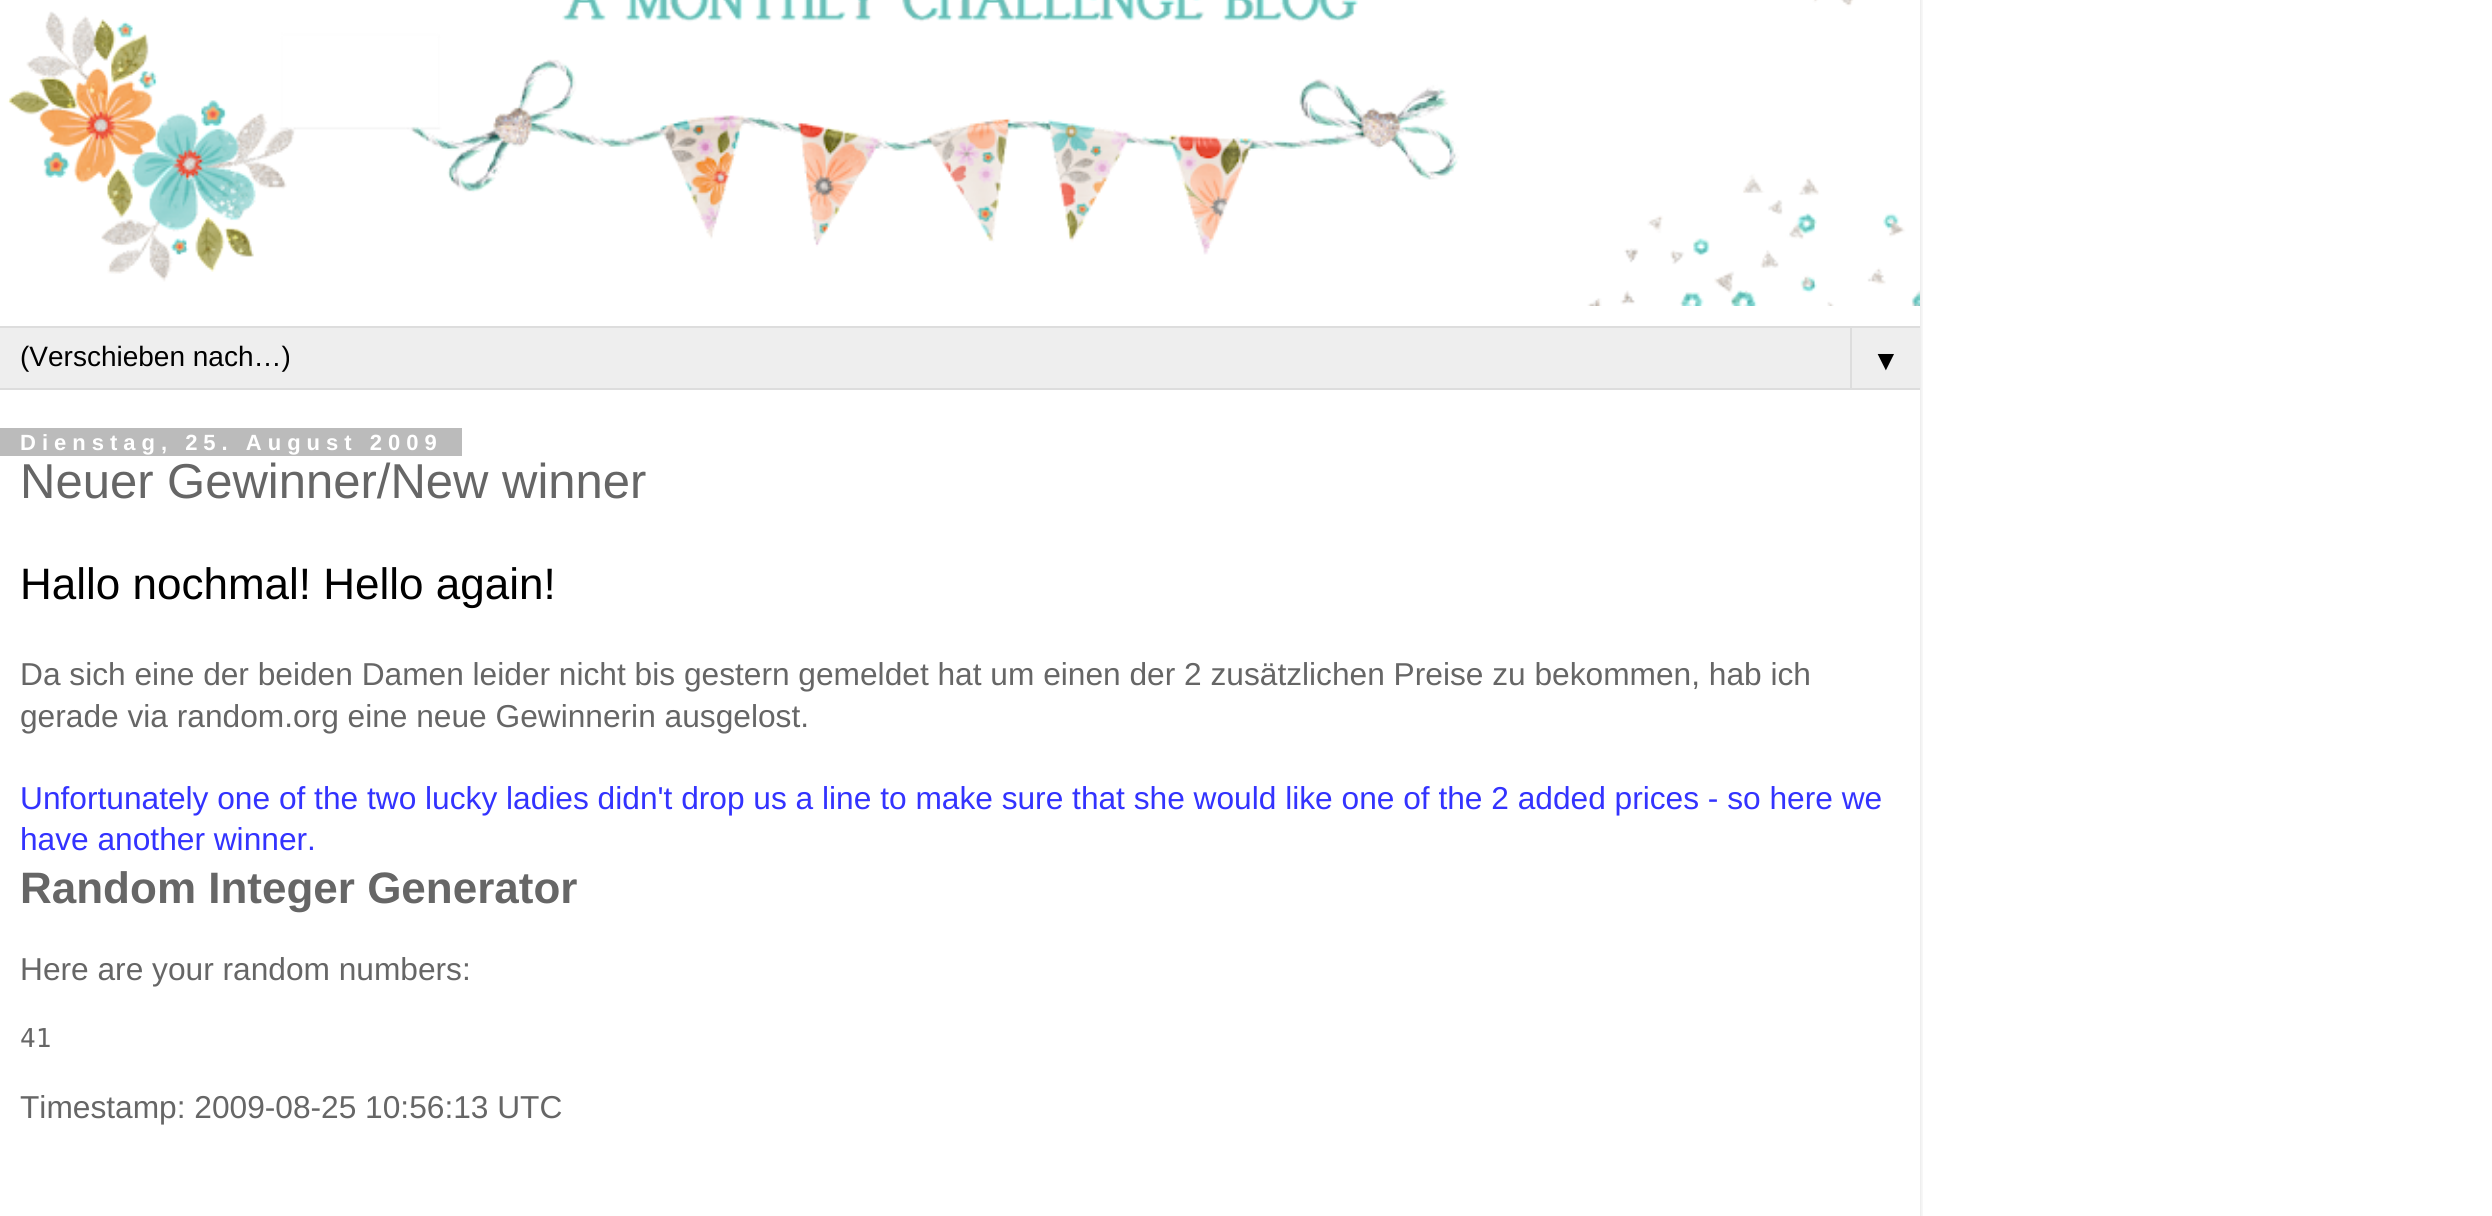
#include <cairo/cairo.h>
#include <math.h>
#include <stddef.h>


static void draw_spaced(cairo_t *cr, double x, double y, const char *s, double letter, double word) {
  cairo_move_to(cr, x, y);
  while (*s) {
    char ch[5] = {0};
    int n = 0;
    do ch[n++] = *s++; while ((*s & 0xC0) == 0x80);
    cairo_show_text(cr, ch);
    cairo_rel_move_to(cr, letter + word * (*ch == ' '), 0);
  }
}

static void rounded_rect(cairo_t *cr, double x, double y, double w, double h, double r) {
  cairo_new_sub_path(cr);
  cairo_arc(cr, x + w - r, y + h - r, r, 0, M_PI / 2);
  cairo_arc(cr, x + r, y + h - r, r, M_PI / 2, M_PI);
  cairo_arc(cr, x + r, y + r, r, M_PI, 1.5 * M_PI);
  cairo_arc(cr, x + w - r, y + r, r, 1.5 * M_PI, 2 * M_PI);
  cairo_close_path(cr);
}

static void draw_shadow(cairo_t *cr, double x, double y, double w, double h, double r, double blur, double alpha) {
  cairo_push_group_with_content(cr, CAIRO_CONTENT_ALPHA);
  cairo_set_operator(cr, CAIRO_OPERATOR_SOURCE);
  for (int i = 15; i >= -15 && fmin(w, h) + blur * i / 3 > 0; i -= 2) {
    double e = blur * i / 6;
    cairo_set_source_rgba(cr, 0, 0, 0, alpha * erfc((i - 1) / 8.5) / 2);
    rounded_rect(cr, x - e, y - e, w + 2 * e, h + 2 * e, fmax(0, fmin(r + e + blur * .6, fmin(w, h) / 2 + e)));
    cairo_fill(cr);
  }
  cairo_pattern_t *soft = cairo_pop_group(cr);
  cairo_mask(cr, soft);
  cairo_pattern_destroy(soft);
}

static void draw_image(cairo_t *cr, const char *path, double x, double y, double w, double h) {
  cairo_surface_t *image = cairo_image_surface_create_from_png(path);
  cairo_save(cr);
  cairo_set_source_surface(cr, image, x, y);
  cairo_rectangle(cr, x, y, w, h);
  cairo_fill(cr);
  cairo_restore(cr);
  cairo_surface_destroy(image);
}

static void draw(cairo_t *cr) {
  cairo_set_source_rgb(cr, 1, 1, 1);
  cairo_paint(cr);
  cairo_save(cr);
  cairo_rectangle(cr, 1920, 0, 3, 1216);
  cairo_clip(cr);
  cairo_set_source_rgb(cr, 0, 0, 0);
  draw_shadow(cr, 0, -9, 1920, 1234, 0, 3, 0.15);
  cairo_restore(cr);
  draw_image(cr, "images/1.png", 7, 0, 1913, 306);
  cairo_set_source_rgb(cr, 238 / 255.0, 238 / 255.0, 238 / 255.0);
  cairo_rectangle(cr, 0, 328, 1920, 60);
  cairo_fill(cr);
  cairo_set_source_rgb(cr, 221 / 255.0, 221 / 255.0, 221 / 255.0);
  cairo_rectangle(cr, 0, 326, 1920, 2);
  cairo_fill(cr);
  cairo_rectangle(cr, 0, 388, 1920, 2);
  cairo_fill(cr);
  cairo_rectangle(cr, 1850, 326, 2, 64);
  cairo_fill(cr);
  cairo_set_source_rgb(cr, 187 / 255.0, 187 / 255.0, 187 / 255.0);
  cairo_rectangle(cr, 0, 428, 462, 28);
  cairo_fill(cr);
  cairo_select_font_face(cr, "Liberation Sans", CAIRO_FONT_SLANT_NORMAL, CAIRO_FONT_WEIGHT_NORMAL);
  cairo_set_font_size(cr, 28);
  cairo_set_source_rgb(cr, 0, 0, 0);
  cairo_move_to(cr, 20, 366);
  cairo_show_text(cr, "(Verschieben nach…)");
  cairo_move_to(cr, 1872, 370);
  cairo_show_text(cr, "▼");
  cairo_select_font_face(cr, "Liberation Sans", CAIRO_FONT_SLANT_NORMAL, CAIRO_FONT_WEIGHT_BOLD);
  cairo_set_font_size(cr, 22);
  cairo_set_source_rgb(cr, 1, 1, 1);
  draw_spaced(cr, 20, 450, "Dienstag, 25. August 2009", 6, 0);
  cairo_select_font_face(cr, "Liberation Sans", CAIRO_FONT_SLANT_NORMAL, CAIRO_FONT_WEIGHT_NORMAL);
  cairo_set_font_size(cr, 49);
  cairo_set_source_rgb(cr, 102 / 255.0, 102 / 255.0, 102 / 255.0);
  cairo_move_to(cr, 20, 498);
  cairo_show_text(cr, "Neuer Gewinner/New winner");
  cairo_set_font_size(cr, 44);
  cairo_set_source_rgb(cr, 0, 0, 0);
  cairo_move_to(cr, 20, 599);
  cairo_show_text(cr, "Hallo nochmal! Hello again!");
  cairo_set_font_size(cr, 31.68);
  cairo_set_source_rgb(cr, 102 / 255.0, 102 / 255.0, 102 / 255.0);
  cairo_move_to(cr, 20, 685);
  cairo_show_text(cr, "Da sich eine der beiden Damen leider nicht bis gestern gemeldet hat um einen der 2 zusätzlichen Preise zu bekommen, hab ich");
  cairo_move_to(cr, 20, 727);
  cairo_show_text(cr, "gerade via random.org eine neue Gewinnerin ausgelost.");
  cairo_set_source_rgb(cr, 51 / 255.0, 51 / 255.0, 1);
  cairo_move_to(cr, 20, 809);
  cairo_show_text(cr, "Unfortunately one of the two lucky ladies didn't drop us a line to make sure that she would like one of the 2 added prices - so here we");
  cairo_move_to(cr, 20, 850);
  cairo_show_text(cr, "have another winner.");
  cairo_select_font_face(cr, "Liberation Sans", CAIRO_FONT_SLANT_NORMAL, CAIRO_FONT_WEIGHT_BOLD);
  cairo_set_font_size(cr, 44);
  cairo_set_source_rgb(cr, 102 / 255.0, 102 / 255.0, 102 / 255.0);
  cairo_move_to(cr, 20, 903);
  cairo_show_text(cr, "Random Integer Generator");
  cairo_select_font_face(cr, "Liberation Sans", CAIRO_FONT_SLANT_NORMAL, CAIRO_FONT_WEIGHT_NORMAL);
  cairo_set_font_size(cr, 31.68);
  cairo_move_to(cr, 20, 980);
  cairo_show_text(cr, "Here are your random numbers:");
  cairo_select_font_face(cr, "DejaVu Sans Mono", CAIRO_FONT_SLANT_NORMAL, CAIRO_FONT_WEIGHT_NORMAL);
  cairo_set_font_size(cr, 26);
  cairo_move_to(cr, 20, 1047);
  cairo_show_text(cr, "41");
  cairo_select_font_face(cr, "Liberation Sans", CAIRO_FONT_SLANT_NORMAL, CAIRO_FONT_WEIGHT_NORMAL);
  cairo_set_font_size(cr, 31.68);
  cairo_move_to(cr, 20, 1118);
  cairo_show_text(cr, "Timestamp: 2009-08-25 10:56:13 UTC");
}

int main(void) {
  cairo_surface_t *surface = cairo_image_surface_create(CAIRO_FORMAT_RGB24, 2492, 1216);
  cairo_t *cr = cairo_create(surface);
  cairo_font_options_t *options = cairo_font_options_create();
  cairo_font_options_set_hint_metrics(options, CAIRO_HINT_METRICS_OFF);
  cairo_font_options_set_hint_style(options, CAIRO_HINT_STYLE_NONE);
  cairo_set_font_options(cr, options);
  cairo_set_miter_limit(cr, 4);
  draw(cr);
  cairo_surface_write_to_png(surface, "out.png");
  cairo_font_options_destroy(options);
  cairo_destroy(cr);
  cairo_surface_destroy(surface);
  return 0;
}
